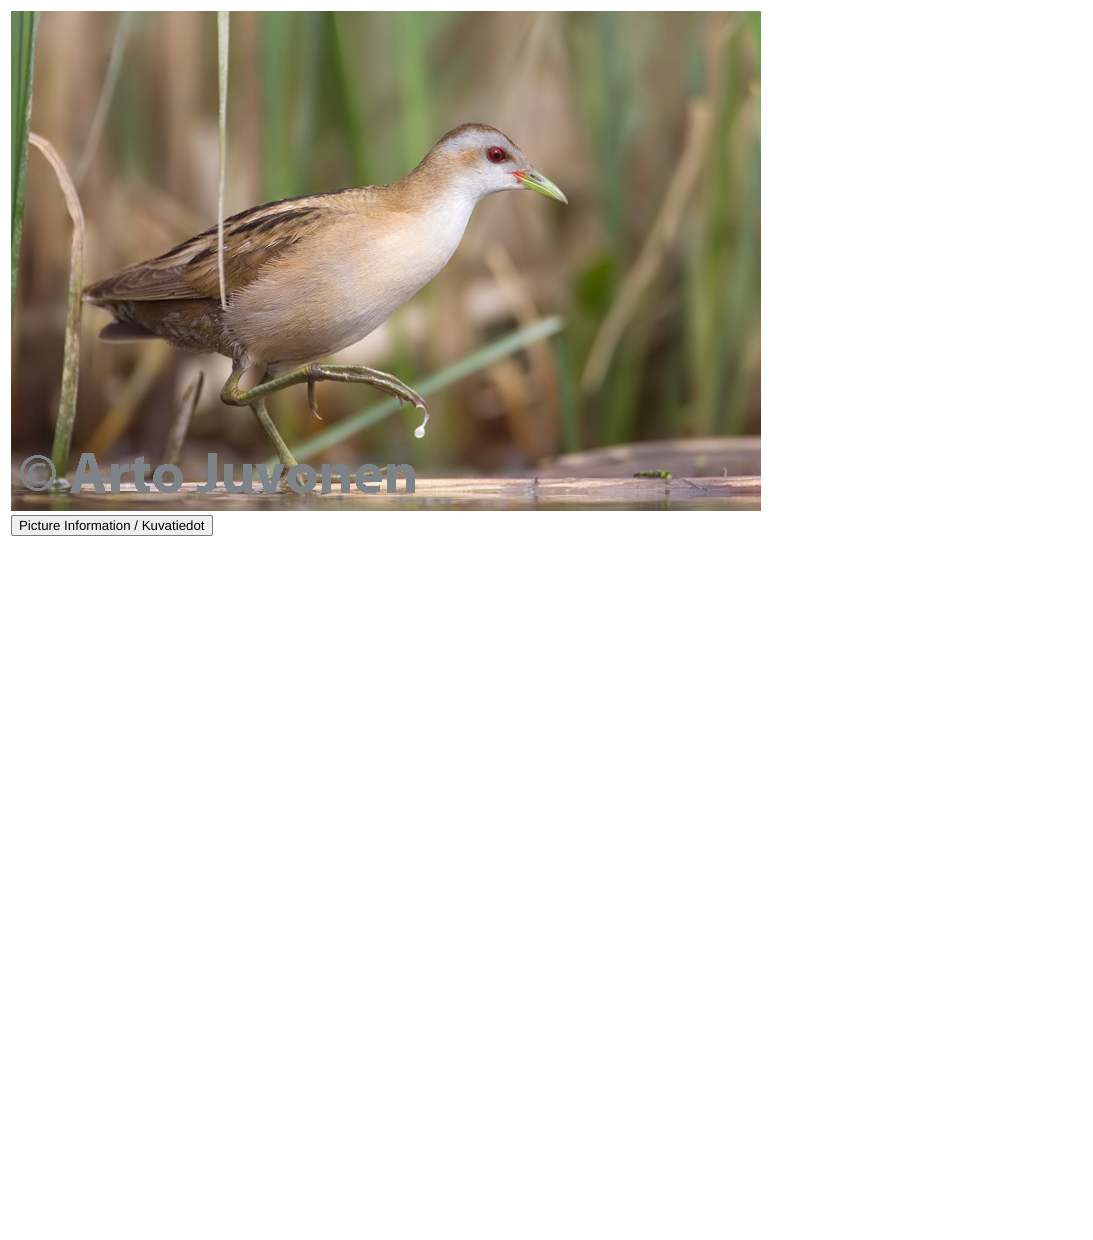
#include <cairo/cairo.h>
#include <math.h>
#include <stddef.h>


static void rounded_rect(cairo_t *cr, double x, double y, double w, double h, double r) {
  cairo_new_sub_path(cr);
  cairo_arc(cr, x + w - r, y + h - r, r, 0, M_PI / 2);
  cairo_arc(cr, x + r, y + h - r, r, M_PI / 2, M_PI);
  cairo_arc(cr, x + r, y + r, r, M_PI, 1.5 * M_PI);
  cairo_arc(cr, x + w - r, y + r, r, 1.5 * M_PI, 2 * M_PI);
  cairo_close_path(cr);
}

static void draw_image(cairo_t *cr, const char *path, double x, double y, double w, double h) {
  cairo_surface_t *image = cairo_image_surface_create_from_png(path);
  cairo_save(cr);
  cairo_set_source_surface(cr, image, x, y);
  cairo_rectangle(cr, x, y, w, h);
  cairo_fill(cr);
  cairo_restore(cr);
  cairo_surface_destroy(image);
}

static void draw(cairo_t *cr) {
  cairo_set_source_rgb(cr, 1, 1, 1);
  cairo_paint(cr);
  draw_image(cr, "images/1.png", 11, 11, 750, 500);
  cairo_set_source_rgb(cr, 239 / 255.0, 239 / 255.0, 239 / 255.0);
  rounded_rect(cr, 11.5, 515.5, 201, 20, 1.5);
  cairo_fill_preserve(cr);
  cairo_set_source_rgb(cr, 118 / 255.0, 118 / 255.0, 118 / 255.0);
  cairo_set_line_width(cr, 1);
  cairo_stroke(cr);
  cairo_select_font_face(cr, "Liberation Sans", CAIRO_FONT_SLANT_NORMAL, CAIRO_FONT_WEIGHT_NORMAL);
  cairo_set_font_size(cr, 13.3);
  cairo_set_source_rgb(cr, 0, 0, 0);
  cairo_move_to(cr, 19, 530);
  cairo_show_text(cr, "Picture Information / Kuvatiedot");
}

int main(void) {
  cairo_surface_t *surface = cairo_image_surface_create(CAIRO_FORMAT_RGB24, 1093, 1240);
  cairo_t *cr = cairo_create(surface);
  cairo_font_options_t *options = cairo_font_options_create();
  cairo_font_options_set_hint_metrics(options, CAIRO_HINT_METRICS_OFF);
  cairo_font_options_set_hint_style(options, CAIRO_HINT_STYLE_NONE);
  cairo_set_font_options(cr, options);
  cairo_set_miter_limit(cr, 4);
  draw(cr);
  cairo_surface_write_to_png(surface, "out.png");
  cairo_font_options_destroy(options);
  cairo_destroy(cr);
  cairo_surface_destroy(surface);
  return 0;
}
